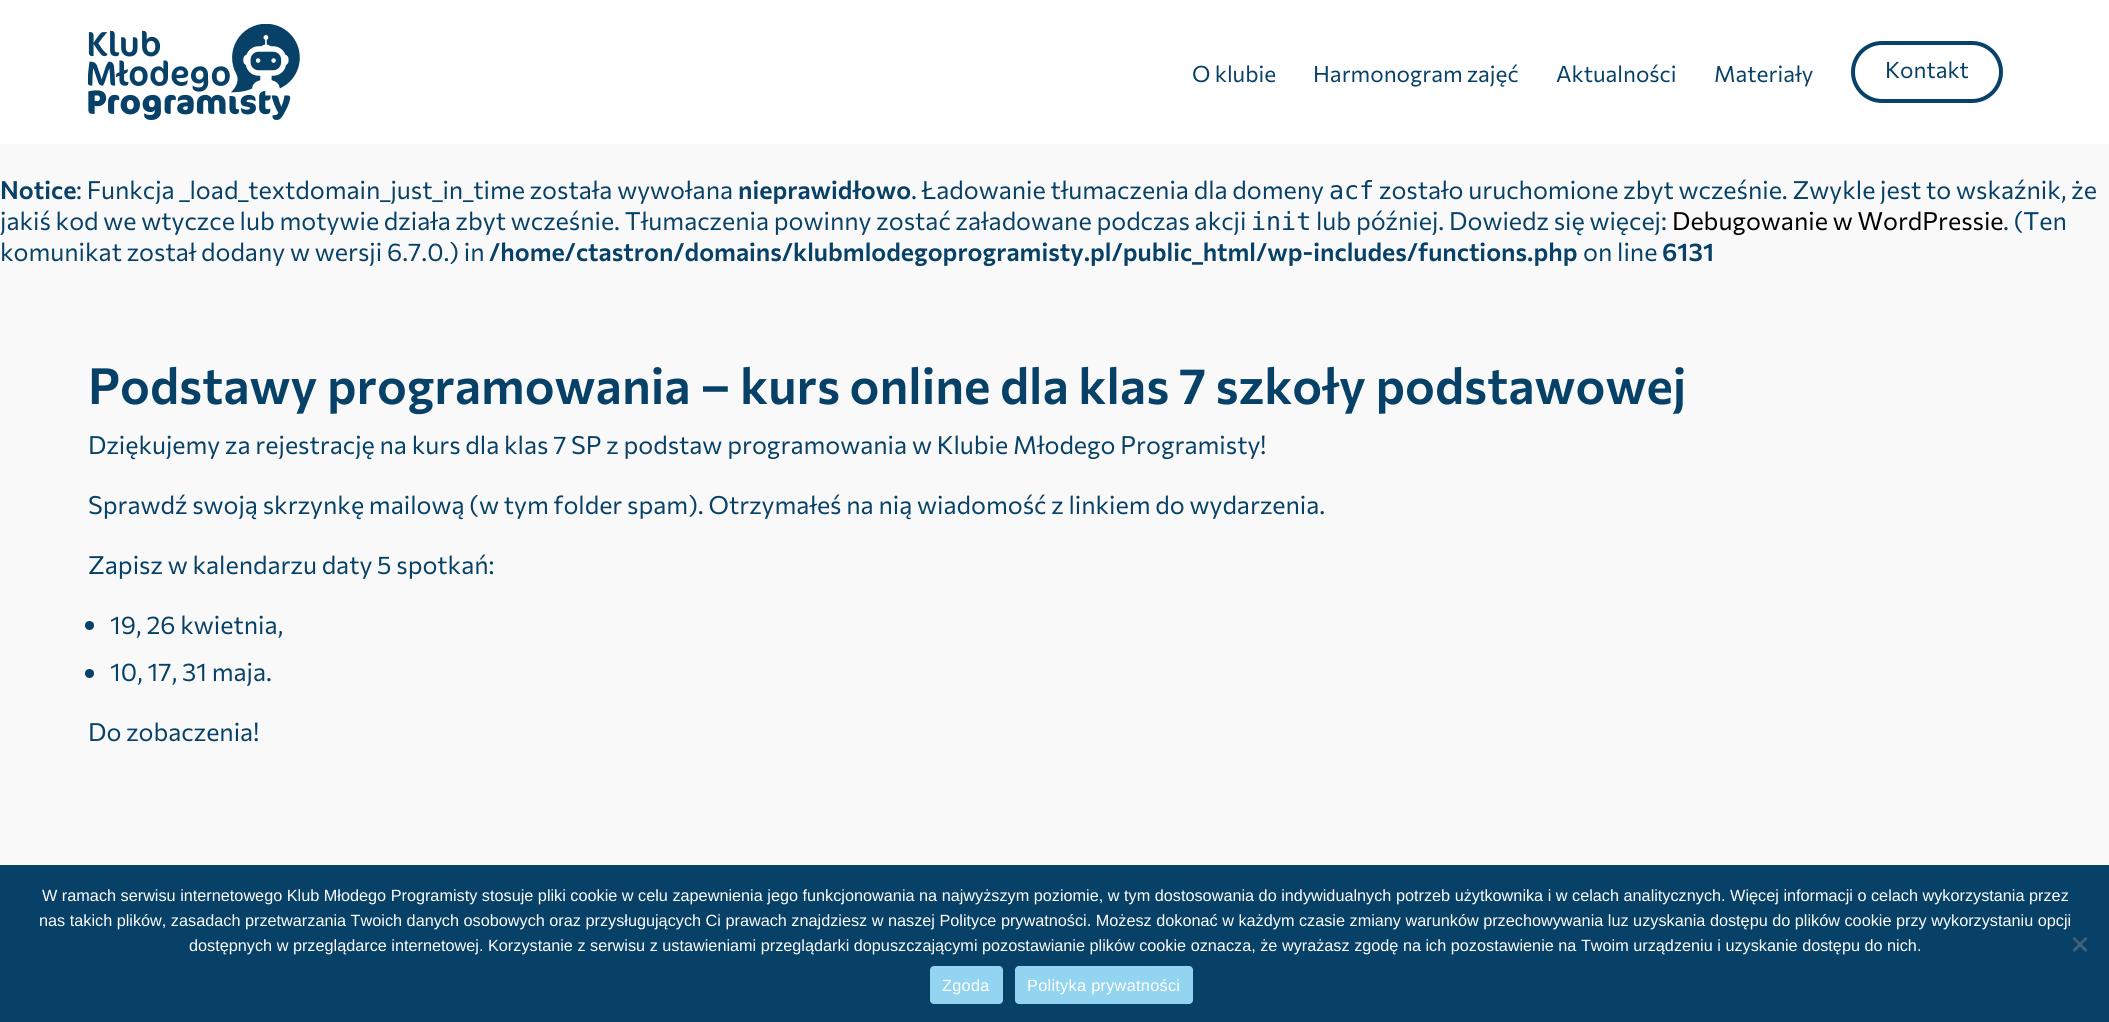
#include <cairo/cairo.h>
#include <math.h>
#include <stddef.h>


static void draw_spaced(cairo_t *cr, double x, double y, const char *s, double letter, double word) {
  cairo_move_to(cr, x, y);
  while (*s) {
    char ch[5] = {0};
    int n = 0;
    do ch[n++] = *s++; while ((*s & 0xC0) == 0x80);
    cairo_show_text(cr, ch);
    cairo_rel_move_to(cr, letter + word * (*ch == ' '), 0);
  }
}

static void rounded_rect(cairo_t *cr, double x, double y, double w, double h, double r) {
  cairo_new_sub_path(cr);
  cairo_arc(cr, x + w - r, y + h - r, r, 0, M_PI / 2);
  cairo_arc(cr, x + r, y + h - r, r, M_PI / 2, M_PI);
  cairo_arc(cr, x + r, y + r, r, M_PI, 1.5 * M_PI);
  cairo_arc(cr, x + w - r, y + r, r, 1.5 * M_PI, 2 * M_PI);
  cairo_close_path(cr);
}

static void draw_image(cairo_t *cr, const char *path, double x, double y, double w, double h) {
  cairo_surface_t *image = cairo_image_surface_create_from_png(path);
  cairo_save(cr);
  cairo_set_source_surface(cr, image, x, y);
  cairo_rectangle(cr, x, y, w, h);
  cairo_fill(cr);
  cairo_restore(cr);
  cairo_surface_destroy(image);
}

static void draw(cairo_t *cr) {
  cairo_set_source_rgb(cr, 249 / 255.0, 249 / 255.0, 249 / 255.0);
  cairo_paint(cr);
  cairo_set_source_rgb(cr, 1, 1, 1);
  cairo_rectangle(cr, 0, 0, 2109, 144);
  cairo_fill(cr);
  draw_image(cr, "images/1.png", 88, 24, 212, 96);
  rounded_rect(cr, 1853, 43, 148, 58, 29);
  cairo_set_source_rgb(cr, 7 / 255.0, 65 / 255.0, 103 / 255.0);
  cairo_set_line_width(cr, 4);
  cairo_stroke(cr);
  cairo_arc(cr, 89.5, 625.5, 4.5, 0, 2 * M_PI);
  cairo_fill(cr);
  cairo_arc(cr, 89.5, 673.5, 4.5, 0, 2 * M_PI);
  cairo_fill(cr);
  cairo_rectangle(cr, 0, 865, 2109, 157);
  cairo_fill(cr);
  cairo_set_source_rgb(cr, 68 / 255.0, 97 / 255.0, 116 / 255.0);
  cairo_new_path(cr);
  cairo_move_to(cr, 2085.5, 937);
  cairo_line_to(cr, 2087.5, 938.5);
  cairo_line_to(cr, 2074.5, 952);
  cairo_line_to(cr, 2072.5, 950);
  cairo_close_path(cr);
  cairo_fill(cr);
  cairo_new_path(cr);
  cairo_move_to(cr, 2072.5, 938.5);
  cairo_line_to(cr, 2074.5, 937);
  cairo_line_to(cr, 2087.5, 950);
  cairo_line_to(cr, 2085.5, 952);
  cairo_close_path(cr);
  cairo_fill(cr);
  cairo_set_source_rgb(cr, 147 / 255.0, 212 / 255.0, 240 / 255.0);
  rounded_rect(cr, 930, 966, 73, 38, 4);
  cairo_fill(cr);
  rounded_rect(cr, 1015, 966, 178, 38, 4);
  cairo_fill(cr);
  cairo_select_font_face(cr, "Commissioner", CAIRO_FONT_SLANT_NORMAL, CAIRO_FONT_WEIGHT_NORMAL);
  cairo_set_font_size(cr, 22.5);
  cairo_set_source_rgb(cr, 7 / 255.0, 65 / 255.0, 103 / 255.0);
  cairo_move_to(cr, 1192, 82);
  cairo_show_text(cr, "O klubie");
  cairo_move_to(cr, 1313, 82);
  cairo_show_text(cr, "Harmonogram zajęć");
  cairo_move_to(cr, 1556, 82);
  cairo_show_text(cr, "Aktualności");
  cairo_move_to(cr, 1714, 82);
  cairo_show_text(cr, "Materiały");
  cairo_move_to(cr, 1885, 78);
  cairo_show_text(cr, "Kontakt");
  cairo_select_font_face(cr, "Commissioner SemiBold", CAIRO_FONT_SLANT_NORMAL, CAIRO_FONT_WEIGHT_NORMAL);
  cairo_set_font_size(cr, 50);
  cairo_move_to(cr, 88, 404);
  cairo_show_text(cr, "Podstawy programowania – kurs online dla klas 7 szkoły podstawowej");
  cairo_select_font_face(cr, "Commissioner", CAIRO_FONT_SLANT_NORMAL, CAIRO_FONT_WEIGHT_NORMAL);
  cairo_set_font_size(cr, 25);
  cairo_move_to(cr, 88, 454);
  cairo_show_text(cr, "Dziękujemy za rejestrację na kurs dla klas 7 SP z podstaw programowania w Klubie Młodego Programisty!");
  cairo_move_to(cr, 88, 514);
  cairo_show_text(cr, "Sprawdź swoją skrzynkę mailową (w tym folder spam). Otrzymałeś na nią wiadomość z linkiem do wydarzenia.");
  cairo_move_to(cr, 88, 574);
  cairo_show_text(cr, "Zapisz w kalendarzu daty 5 spotkań:");
  cairo_move_to(cr, 110, 634);
  cairo_show_text(cr, "19, 26 kwietnia,");
  cairo_move_to(cr, 110, 681);
  cairo_show_text(cr, "10, 17, 31 maja.");
  cairo_move_to(cr, 88, 741);
  cairo_show_text(cr, "Do zobaczenia!");
  cairo_select_font_face(cr, "Commissioner SemiBold", CAIRO_FONT_SLANT_NORMAL, CAIRO_FONT_WEIGHT_NORMAL);
  cairo_move_to(cr, 0, 199);
  cairo_show_text(cr, "Notice");
  cairo_select_font_face(cr, "Commissioner", CAIRO_FONT_SLANT_NORMAL, CAIRO_FONT_WEIGHT_NORMAL);
  cairo_move_to(cr, 76, 199);
  cairo_show_text(cr, ": Funkcja _load_textdomain_just_in_time została wywołana");
  cairo_select_font_face(cr, "Commissioner SemiBold", CAIRO_FONT_SLANT_NORMAL, CAIRO_FONT_WEIGHT_NORMAL);
  cairo_move_to(cr, 738, 199);
  cairo_show_text(cr, "nieprawidłowo");
  cairo_select_font_face(cr, "Commissioner", CAIRO_FONT_SLANT_NORMAL, CAIRO_FONT_WEIGHT_NORMAL);
  cairo_move_to(cr, 911, 199);
  cairo_show_text(cr, ". Ładowanie tłumaczenia dla domeny");
  cairo_select_font_face(cr, "DejaVu Sans Mono", CAIRO_FONT_SLANT_NORMAL, CAIRO_FONT_WEIGHT_NORMAL);
  cairo_move_to(cr, 1329, 199);
  cairo_show_text(cr, "acf");
  cairo_select_font_face(cr, "Commissioner", CAIRO_FONT_SLANT_NORMAL, CAIRO_FONT_WEIGHT_NORMAL);
  cairo_move_to(cr, 1379, 199);
  cairo_show_text(cr, "zostało uruchomione zbyt wcześnie. Zwykle jest to wskaźnik, że");
  cairo_move_to(cr, 0, 230);
  cairo_show_text(cr, "jakiś kod we wtyczce lub motywie działa zbyt wcześnie. Tłumaczenia powinny zostać załadowane podczas akcji");
  cairo_select_font_face(cr, "DejaVu Sans Mono", CAIRO_FONT_SLANT_NORMAL, CAIRO_FONT_WEIGHT_NORMAL);
  cairo_move_to(cr, 1251, 230);
  cairo_show_text(cr, "init");
  cairo_select_font_face(cr, "Commissioner", CAIRO_FONT_SLANT_NORMAL, CAIRO_FONT_WEIGHT_NORMAL);
  cairo_move_to(cr, 1316, 230);
  cairo_show_text(cr, "lub później. Dowiedz się więcej:");
  cairo_set_source_rgb(cr, 0, 0, 0);
  cairo_move_to(cr, 1672, 230);
  cairo_show_text(cr, "Debugowanie w WordPressie");
  cairo_set_source_rgb(cr, 7 / 255.0, 65 / 255.0, 103 / 255.0);
  cairo_move_to(cr, 2003, 230);
  cairo_show_text(cr, ". (Ten");
  cairo_move_to(cr, 0, 261);
  cairo_show_text(cr, "komunikat został dodany w wersji 6.7.0.) in");
  cairo_select_font_face(cr, "Commissioner SemiBold", CAIRO_FONT_SLANT_NORMAL, CAIRO_FONT_WEIGHT_NORMAL);
  cairo_move_to(cr, 489, 261);
  cairo_show_text(cr, "/home/ctastron/domains/klubmlodegoprogramisty.pl/public_html/wp-includes/functions.php");
  cairo_select_font_face(cr, "Commissioner", CAIRO_FONT_SLANT_NORMAL, CAIRO_FONT_WEIGHT_NORMAL);
  cairo_move_to(cr, 1583, 261);
  cairo_show_text(cr, "on line");
  cairo_select_font_face(cr, "Commissioner SemiBold", CAIRO_FONT_SLANT_NORMAL, CAIRO_FONT_WEIGHT_NORMAL);
  cairo_move_to(cr, 1662, 261);
  cairo_show_text(cr, "6131");
  cairo_select_font_face(cr, "Liberation Sans", CAIRO_FONT_SLANT_NORMAL, CAIRO_FONT_WEIGHT_NORMAL);
  cairo_set_font_size(cr, 16.25);
  cairo_set_source_rgb(cr, 1, 1, 1);
  cairo_move_to(cr, 42, 901);
  cairo_show_text(cr, "W ramach serwisu internetowego Klub Młodego Programisty stosuje pliki cookie w celu zapewnienia jego funkcjonowania na najwyższym poziomie, w tym dostosowania do indywidualnych potrzeb użytkownika i w celach analitycznych. Więcej informacji o celach wykorzystania przez");
  cairo_move_to(cr, 39, 926);
  cairo_show_text(cr, "nas takich plików, zasadach przetwarzania Twoich danych osobowych oraz przysługujących Ci prawach znajdziesz w naszej Polityce prywatności. Możesz dokonać w każdym czasie zmiany warunków przechowywania luz uzyskania dostępu do plików cookie przy wykorzystaniu opcji");
  cairo_move_to(cr, 189, 951);
  cairo_show_text(cr, "dostępnych w przeglądarce internetowej. Korzystanie z serwisu z ustawieniami przeglądarki dopuszczającymi pozostawianie plików cookie oznacza, że wyrażasz zgodę na ich pozostawienie na Twoim urządzeniu i uzyskanie dostępu do nich.");
  draw_spaced(cr, 942, 991, "Zgoda", 0.3, 0);
  draw_spaced(cr, 1027, 991, "Polityka prywatności", 0.3, 0);
}

int main(void) {
  cairo_surface_t *surface = cairo_image_surface_create(CAIRO_FORMAT_RGB24, 2109, 1022);
  cairo_t *cr = cairo_create(surface);
  cairo_font_options_t *options = cairo_font_options_create();
  cairo_font_options_set_hint_metrics(options, CAIRO_HINT_METRICS_OFF);
  cairo_font_options_set_hint_style(options, CAIRO_HINT_STYLE_NONE);
  cairo_set_font_options(cr, options);
  cairo_set_miter_limit(cr, 4);
  draw(cr);
  cairo_surface_write_to_png(surface, "out.png");
  cairo_font_options_destroy(options);
  cairo_destroy(cr);
  cairo_surface_destroy(surface);
  return 0;
}
